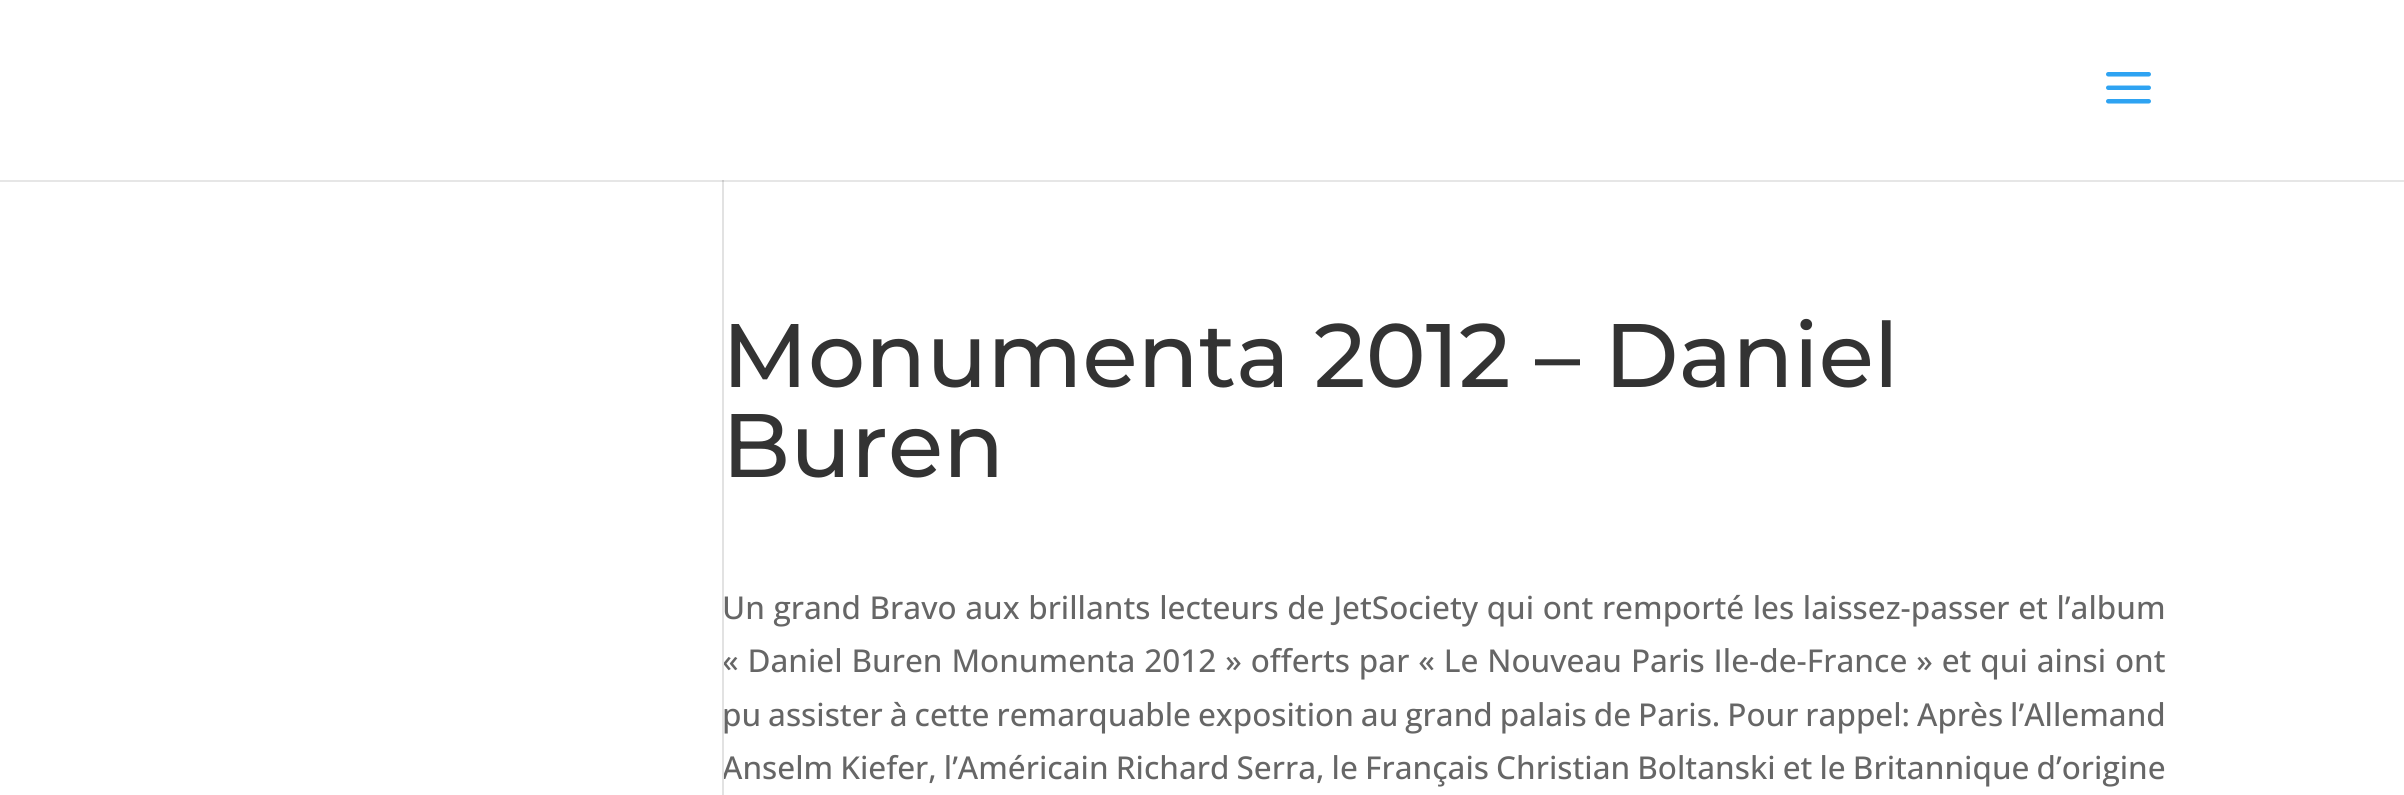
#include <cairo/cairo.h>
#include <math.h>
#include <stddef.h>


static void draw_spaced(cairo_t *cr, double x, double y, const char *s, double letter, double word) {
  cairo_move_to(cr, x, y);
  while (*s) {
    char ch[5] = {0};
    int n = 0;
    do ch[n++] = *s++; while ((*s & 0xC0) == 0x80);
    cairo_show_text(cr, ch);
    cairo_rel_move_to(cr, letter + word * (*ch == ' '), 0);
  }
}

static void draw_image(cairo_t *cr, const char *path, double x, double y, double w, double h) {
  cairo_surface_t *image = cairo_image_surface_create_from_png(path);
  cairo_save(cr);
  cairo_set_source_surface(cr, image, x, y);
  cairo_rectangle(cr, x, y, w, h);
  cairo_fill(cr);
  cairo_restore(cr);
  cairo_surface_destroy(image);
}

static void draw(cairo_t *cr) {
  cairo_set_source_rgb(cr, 1, 1, 1);
  cairo_paint(cr);
  cairo_set_source_rgb(cr, 230 / 255.0, 230 / 255.0, 230 / 255.0);
  cairo_rectangle(cr, 0, 180, 2404, 2);
  cairo_fill(cr);
  draw_image(cr, "images/1.png", 2106, 72, 45, 32);
  cairo_select_font_face(cr, "Montserrat Medium", CAIRO_FONT_SLANT_NORMAL, CAIRO_FONT_WEIGHT_NORMAL);
  cairo_set_font_size(cr, 90);
  cairo_set_source_rgb(cr, 51 / 255.0, 51 / 255.0, 51 / 255.0);
  cairo_move_to(cr, 722, 387);
  cairo_show_text(cr, "Monumenta 2012 – Daniel");
  cairo_move_to(cr, 722, 477);
  cairo_show_text(cr, "Buren");
  cairo_select_font_face(cr, "Open Sans Medium", CAIRO_FONT_SLANT_NORMAL, CAIRO_FONT_WEIGHT_NORMAL);
  cairo_set_font_size(cr, 31.5);
  cairo_set_source_rgb(cr, 102 / 255.0, 102 / 255.0, 102 / 255.0);
  draw_spaced(cr, 722, 619, "Un grand Bravo aux brillants lecteurs de JetSociety qui ont remporté les laissez-passer et l’album", 0, 0.4);
  draw_spaced(cr, 722, 672, "« Daniel Buren Monumenta 2012 » offerts par « Le Nouveau Paris Ile-de-France » et qui ainsi ont", 0, 0.7);
  draw_spaced(cr, 722, 726, "pu assister à cette remarquable exposition au grand palais de Paris. Pour rappel: Après l’Allemand", 0, -1.25);
  draw_spaced(cr, 722, 779, "Anselm Kiefer, l’Américain Richard Serra, le Français Christian Boltanski et le Britannique d’origine", 0, -1.1);
  cairo_set_source_rgb(cr, 226 / 255.0, 226 / 255.0, 226 / 255.0);
  cairo_rectangle(cr, 722, 180, 2, 615);
  cairo_fill(cr);
  cairo_set_source_rgb(cr, 203 / 255.0, 203 / 255.0, 203 / 255.0);
  cairo_rectangle(cr, 722, 180, 2, 2);
  cairo_fill(cr);
}

int main(void) {
  cairo_surface_t *surface = cairo_image_surface_create(CAIRO_FORMAT_RGB24, 2404, 795);
  cairo_t *cr = cairo_create(surface);
  cairo_font_options_t *options = cairo_font_options_create();
  cairo_font_options_set_hint_metrics(options, CAIRO_HINT_METRICS_OFF);
  cairo_font_options_set_hint_style(options, CAIRO_HINT_STYLE_NONE);
  cairo_set_font_options(cr, options);
  cairo_set_miter_limit(cr, 4);
  draw(cr);
  cairo_surface_write_to_png(surface, "out.png");
  cairo_font_options_destroy(options);
  cairo_destroy(cr);
  cairo_surface_destroy(surface);
  return 0;
}
